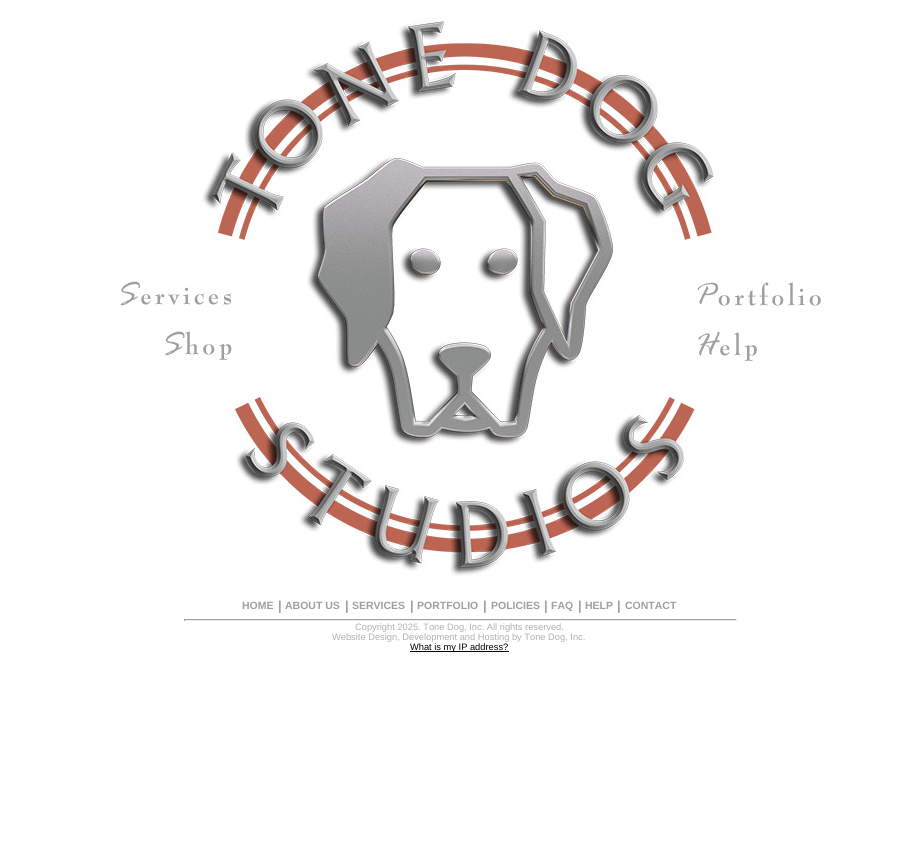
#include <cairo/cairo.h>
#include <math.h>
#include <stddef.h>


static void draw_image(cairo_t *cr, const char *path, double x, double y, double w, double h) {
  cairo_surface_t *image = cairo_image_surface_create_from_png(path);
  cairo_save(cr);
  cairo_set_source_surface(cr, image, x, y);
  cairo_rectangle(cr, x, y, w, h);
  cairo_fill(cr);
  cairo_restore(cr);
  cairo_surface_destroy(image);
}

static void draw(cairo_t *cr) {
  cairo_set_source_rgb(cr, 1, 1, 1);
  cairo_paint(cr);
  draw_image(cr, "images/2.png", 202, 19, 514, 557);
  draw_image(cr, "images/1.png", 120, 281, 111, 25);
  draw_image(cr, "images/3.png", 697, 282, 124, 24);
  draw_image(cr, "images/4.png", 165, 331, 67, 29);
  draw_image(cr, "images/5.png", 698, 331, 59, 30);
  cairo_set_source_rgb(cr, 159 / 255.0, 159 / 255.0, 159 / 255.0);
  cairo_rectangle(cr, 184, 619, 553, 1);
  cairo_fill(cr);
  cairo_set_source_rgb(cr, 238 / 255.0, 238 / 255.0, 238 / 255.0);
  cairo_rectangle(cr, 736, 619, 1, 2);
  cairo_fill(cr);
  cairo_rectangle(cr, 184, 620, 553, 1);
  cairo_fill(cr);
  cairo_set_source_rgb(cr, 159 / 255.0, 159 / 255.0, 159 / 255.0);
  cairo_rectangle(cr, 184, 619, 1, 2);
  cairo_fill(cr);
  cairo_set_source_rgb(cr, 0, 0, 0);
  cairo_rectangle(cr, 410, 651, 99, 1);
  cairo_fill(cr);
  cairo_select_font_face(cr, "Liberation Sans", CAIRO_FONT_SLANT_NORMAL, CAIRO_FONT_WEIGHT_BOLD);
  cairo_set_font_size(cr, 10.5);
  cairo_set_source_rgb(cr, 159 / 255.0, 159 / 255.0, 159 / 255.0);
  cairo_move_to(cr, 242, 609);
  cairo_show_text(cr, "HOME");
  cairo_set_font_size(cr, 13);
  cairo_move_to(cr, 278, 610);
  cairo_show_text(cr, "|");
  cairo_set_font_size(cr, 10.5);
  cairo_move_to(cr, 285, 609);
  cairo_show_text(cr, "ABOUT US");
  cairo_set_font_size(cr, 13);
  cairo_move_to(cr, 345, 610);
  cairo_show_text(cr, "|");
  cairo_set_font_size(cr, 10.5);
  cairo_move_to(cr, 352, 609);
  cairo_show_text(cr, "SERVICES");
  cairo_set_font_size(cr, 13);
  cairo_move_to(cr, 410, 610);
  cairo_show_text(cr, "|");
  cairo_set_font_size(cr, 10.5);
  cairo_move_to(cr, 417, 609);
  cairo_show_text(cr, "PORTFOLIO");
  cairo_set_font_size(cr, 13);
  cairo_move_to(cr, 483, 610);
  cairo_show_text(cr, "|");
  cairo_set_font_size(cr, 10.5);
  cairo_move_to(cr, 491, 609);
  cairo_show_text(cr, "POLICIES");
  cairo_set_font_size(cr, 13);
  cairo_move_to(cr, 544, 610);
  cairo_show_text(cr, "|");
  cairo_set_font_size(cr, 10.5);
  cairo_move_to(cr, 551, 609);
  cairo_show_text(cr, "FAQ");
  cairo_set_font_size(cr, 13);
  cairo_move_to(cr, 578, 610);
  cairo_show_text(cr, "|");
  cairo_set_font_size(cr, 10.5);
  cairo_move_to(cr, 585, 609);
  cairo_show_text(cr, "HELP");
  cairo_set_font_size(cr, 13);
  cairo_move_to(cr, 617, 610);
  cairo_show_text(cr, "|");
  cairo_set_font_size(cr, 10.5);
  cairo_move_to(cr, 625, 609);
  cairo_show_text(cr, "CONTACT");
  cairo_select_font_face(cr, "Liberation Sans", CAIRO_FONT_SLANT_NORMAL, CAIRO_FONT_WEIGHT_NORMAL);
  cairo_set_font_size(cr, 9.3);
  cairo_set_source_rgb(cr, 175 / 255.0, 175 / 255.0, 175 / 255.0);
  cairo_move_to(cr, 355, 630);
  cairo_show_text(cr, "Copyright 2025. Tone Dog, Inc. All rights reserved.");
  cairo_move_to(cr, 332, 640);
  cairo_show_text(cr, "Website Design, Development and Hosting by Tone Dog, Inc.");
  cairo_set_source_rgb(cr, 0, 0, 0);
  cairo_move_to(cr, 410, 650);
  cairo_show_text(cr, "What is my IP address?");
}

int main(void) {
  cairo_surface_t *surface = cairo_image_surface_create(CAIRO_FORMAT_RGB24, 912, 858);
  cairo_t *cr = cairo_create(surface);
  cairo_font_options_t *options = cairo_font_options_create();
  cairo_font_options_set_hint_metrics(options, CAIRO_HINT_METRICS_OFF);
  cairo_font_options_set_hint_style(options, CAIRO_HINT_STYLE_NONE);
  cairo_set_font_options(cr, options);
  cairo_set_miter_limit(cr, 4);
  draw(cr);
  cairo_surface_write_to_png(surface, "out.png");
  cairo_font_options_destroy(options);
  cairo_destroy(cr);
  cairo_surface_destroy(surface);
  return 0;
}
